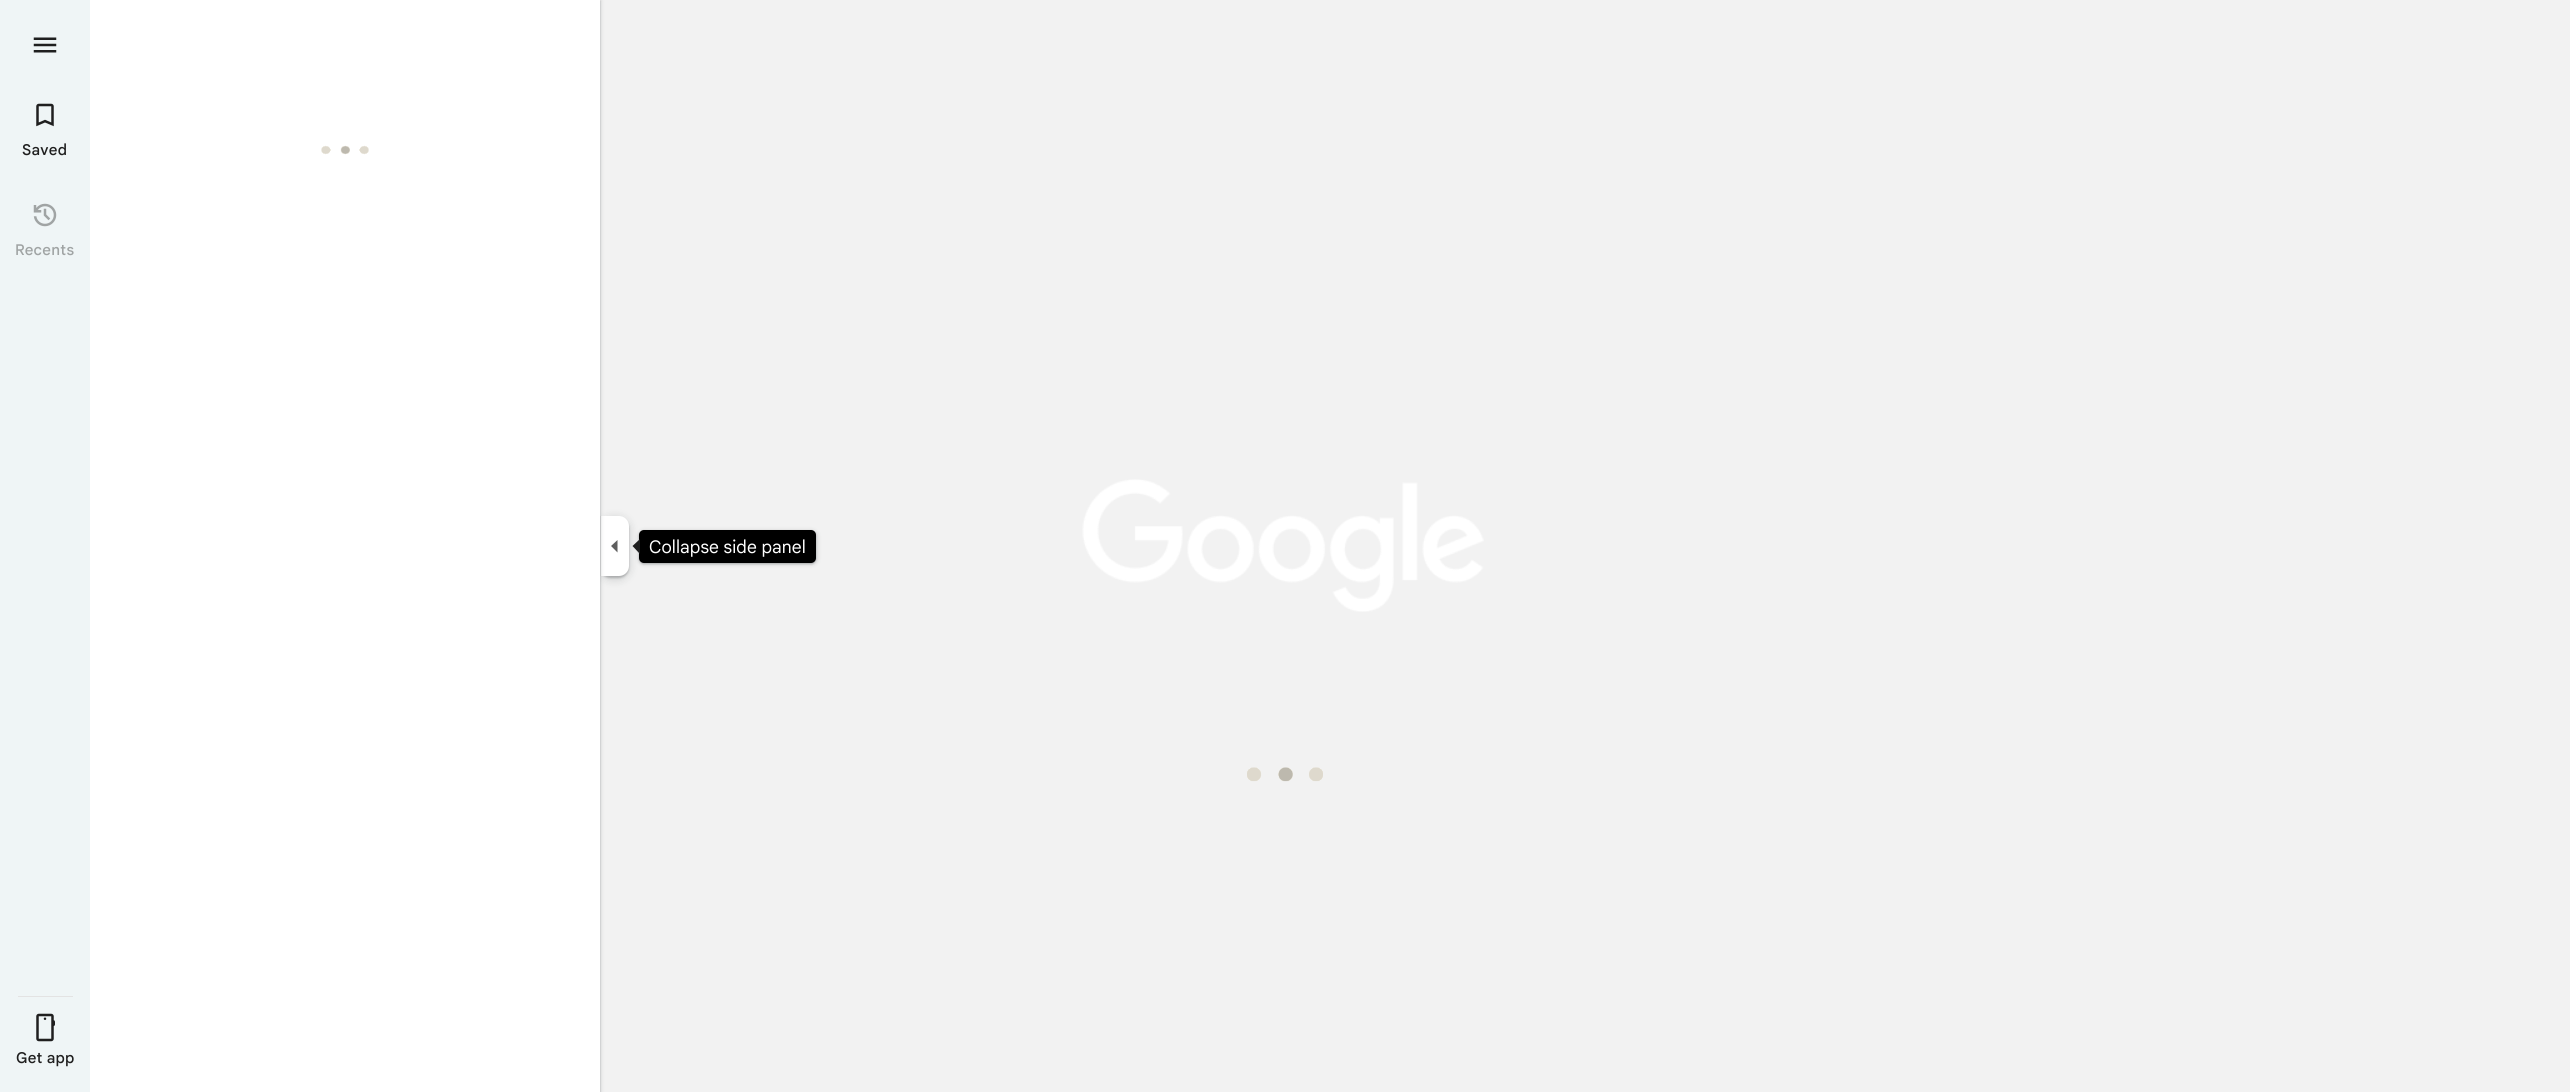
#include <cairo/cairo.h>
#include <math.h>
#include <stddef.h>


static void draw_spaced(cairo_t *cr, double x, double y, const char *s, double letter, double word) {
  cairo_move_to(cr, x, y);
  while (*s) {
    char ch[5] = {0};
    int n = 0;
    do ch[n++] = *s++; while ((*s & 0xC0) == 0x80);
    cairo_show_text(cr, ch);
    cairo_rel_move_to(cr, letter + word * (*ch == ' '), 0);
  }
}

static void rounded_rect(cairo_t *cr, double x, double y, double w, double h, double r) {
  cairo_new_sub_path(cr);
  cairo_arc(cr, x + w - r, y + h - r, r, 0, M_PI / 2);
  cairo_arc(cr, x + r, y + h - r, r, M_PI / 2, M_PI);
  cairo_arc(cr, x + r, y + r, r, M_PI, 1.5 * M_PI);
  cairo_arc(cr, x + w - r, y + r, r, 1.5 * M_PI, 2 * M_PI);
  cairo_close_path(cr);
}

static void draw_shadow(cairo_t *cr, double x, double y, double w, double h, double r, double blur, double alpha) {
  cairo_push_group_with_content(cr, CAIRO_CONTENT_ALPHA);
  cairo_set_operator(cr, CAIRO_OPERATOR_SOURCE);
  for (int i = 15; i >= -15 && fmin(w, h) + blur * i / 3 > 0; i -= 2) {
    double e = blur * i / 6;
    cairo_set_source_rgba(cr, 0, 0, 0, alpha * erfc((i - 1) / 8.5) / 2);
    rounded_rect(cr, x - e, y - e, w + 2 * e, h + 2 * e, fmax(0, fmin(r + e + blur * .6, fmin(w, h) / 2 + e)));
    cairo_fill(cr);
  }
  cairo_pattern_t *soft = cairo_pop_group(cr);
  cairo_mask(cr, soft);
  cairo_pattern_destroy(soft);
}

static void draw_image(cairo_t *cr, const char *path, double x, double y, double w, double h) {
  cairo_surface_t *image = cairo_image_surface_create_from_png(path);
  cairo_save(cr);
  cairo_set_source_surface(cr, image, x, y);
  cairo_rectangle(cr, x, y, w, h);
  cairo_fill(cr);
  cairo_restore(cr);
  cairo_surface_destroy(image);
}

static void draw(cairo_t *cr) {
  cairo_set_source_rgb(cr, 242 / 255.0, 242 / 255.0, 242 / 255.0);
  cairo_paint(cr);
  cairo_set_source_rgb(cr, 60 / 255.0, 64 / 255.0, 67 / 255.0);
  draw_shadow(cr, 598, 516, 33, 65, 13, 4, 0.15);
  draw_shadow(cr, 600, 518, 29, 60, 10, 1, 0.3);
  cairo_set_source_rgb(cr, 1, 1, 1);
  cairo_new_path(cr);
  cairo_move_to(cr, 600, 516);
  cairo_line_to(cr, 619, 516);
  cairo_curve_to(cr, 624.5, 516, 629, 520.5, 629, 526);
  cairo_line_to(cr, 629, 566);
  cairo_curve_to(cr, 629, 571.5, 624.5, 576, 619, 576);
  cairo_line_to(cr, 600, 576);
  cairo_close_path(cr);
  cairo_fill(cr);
  cairo_set_source_rgb(cr, 227 / 255.0, 227 / 255.0, 227 / 255.0);
  cairo_rectangle(cr, 600, 516, 1, 60);
  cairo_fill(cr);
  cairo_set_source_rgb(cr, 60 / 255.0, 64 / 255.0, 67 / 255.0);
  draw_shadow(cr, 89, 0, 512, 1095, 0, 2, 0.15);
  draw_shadow(cr, 90, 1, 510, 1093, 0, 1, 0.3);
  cairo_set_source_rgb(cr, 239 / 255.0, 245 / 255.0, 246 / 255.0);
  cairo_rectangle(cr, 0, 0, 90, 1092);
  cairo_fill(cr);
  draw_image(cr, "images/1.png", 33, 37, 24, 16);
  draw_image(cr, "images/2.png", 36, 103, 18, 24);
  draw_image(cr, "images/3.png", 33, 203, 24, 24);
  cairo_set_source_rgb(cr, 227 / 255.0, 227 / 255.0, 227 / 255.0);
  cairo_rectangle(cr, 18, 996, 55, 1);
  cairo_fill(cr);
  draw_image(cr, "images/4.png", 36, 1013, 19, 29);
  cairo_set_source_rgb(cr, 1, 1, 1);
  cairo_rectangle(cr, 90, 0, 510, 1092);
  cairo_fill(cr);
  draw_image(cr, "images/5.png", 321, 145, 48, 10);
  cairo_set_source_rgb(cr, 94 / 255.0, 94 / 255.0, 94 / 255.0);
  cairo_new_path(cr);
  cairo_move_to(cr, 617.5, 552.5);
  cairo_line_to(cr, 611, 546);
  cairo_line_to(cr, 617.5, 540);
  cairo_close_path(cr);
  cairo_fill(cr);
  cairo_set_source_rgb(cr, 60 / 255.0, 64 / 255.0, 67 / 255.0);
  draw_shadow(cr, 638, 530, 180, 35, 6, 2, 0.15);
  draw_shadow(cr, 639, 531, 177, 33, 5, 1, 0.3);
  cairo_set_source_rgb(cr, 0, 0, 0);
  rounded_rect(cr, 639, 530, 177, 33, 5);
  cairo_fill(cr);
  cairo_set_source_rgb(cr, 31 / 255.0, 31 / 255.0, 31 / 255.0);
  cairo_new_path(cr);
  cairo_move_to(cr, 640, 539);
  cairo_line_to(cr, 640, 554);
  cairo_line_to(cr, 632.5, 546);
  cairo_close_path(cr);
  cairo_fill(cr);
  draw_image(cr, "images/6.png", 1082, 479, 402, 133);
  draw_image(cr, "images/7.png", 1247, 767, 76, 15);
  cairo_select_font_face(cr, "Google Sans Medium", CAIRO_FONT_SLANT_NORMAL, CAIRO_FONT_WEIGHT_NORMAL);
  cairo_set_font_size(cr, 15);
  draw_spaced(cr, 22, 155, "Saved", 0.25, 0);
  cairo_set_source_rgb(cr, 160 / 255.0, 164 / 255.0, 164 / 255.0);
  draw_spaced(cr, 15, 255, "Recents", 0.25, 0);
  cairo_set_source_rgb(cr, 31 / 255.0, 31 / 255.0, 31 / 255.0);
  draw_spaced(cr, 16, 1063, "Get app", 0.25, 0);
  cairo_select_font_face(cr, "Google Sans", CAIRO_FONT_SLANT_NORMAL, CAIRO_FONT_WEIGHT_NORMAL);
  cairo_set_font_size(cr, 17.5);
  cairo_set_source_rgb(cr, 1, 1, 1);
  draw_spaced(cr, 649, 553, "Collapse side panel", 0.1, 0);
}

int main(void) {
  cairo_surface_t *surface = cairo_image_surface_create(CAIRO_FORMAT_RGB24, 2570, 1092);
  cairo_t *cr = cairo_create(surface);
  cairo_font_options_t *options = cairo_font_options_create();
  cairo_font_options_set_hint_metrics(options, CAIRO_HINT_METRICS_OFF);
  cairo_font_options_set_hint_style(options, CAIRO_HINT_STYLE_NONE);
  cairo_set_font_options(cr, options);
  cairo_set_miter_limit(cr, 4);
  draw(cr);
  cairo_surface_write_to_png(surface, "out.png");
  cairo_font_options_destroy(options);
  cairo_destroy(cr);
  cairo_surface_destroy(surface);
  return 0;
}
